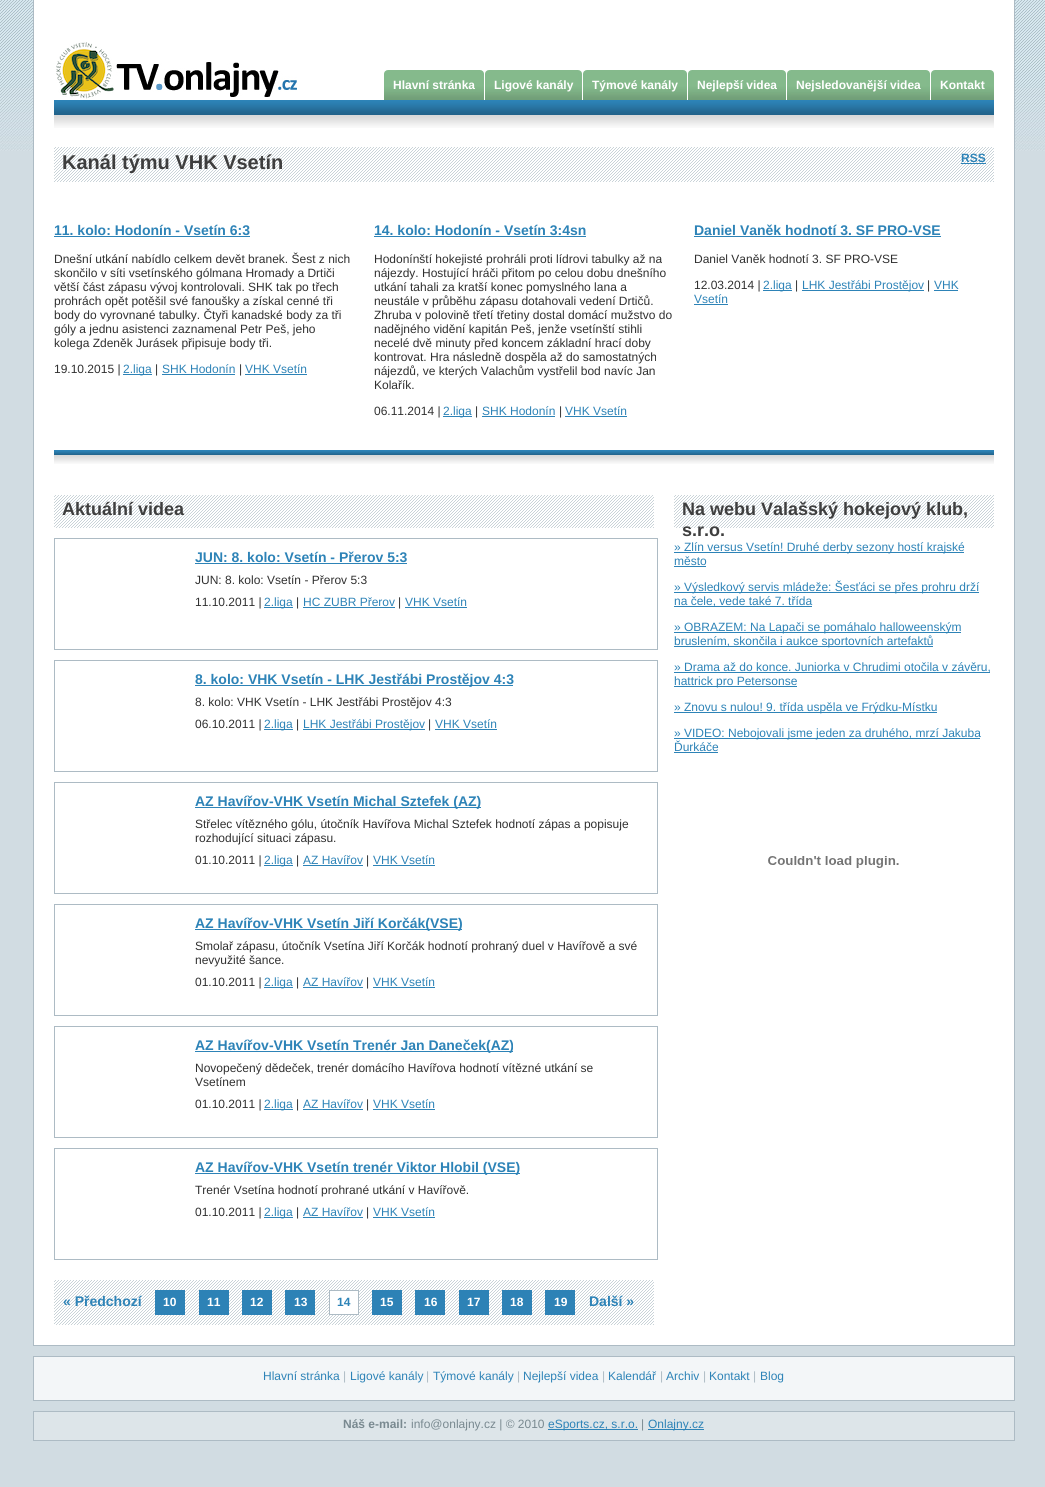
#include <cairo/cairo.h>
#include <math.h>
#include <stddef.h>


static void draw_image(cairo_t *cr, const char *path, double x, double y, double w, double h) {
  cairo_surface_t *image = cairo_image_surface_create_from_png(path);
  cairo_save(cr);
  cairo_set_source_surface(cr, image, x, y);
  cairo_rectangle(cr, x, y, w, h);
  cairo_fill(cr);
  cairo_restore(cr);
  cairo_surface_destroy(image);
}

static void draw(cairo_t *cr) {
  cairo_set_source_rgb(cr, 209 / 255.0, 220 / 255.0, 226 / 255.0);
  cairo_paint(cr);
  draw_image(cr, "images/1.png", 0, 0, 1045, 151);
  cairo_set_source_rgb(cr, 1, 1, 1);
  cairo_rectangle(cr, 34, 0, 980, 1345);
  cairo_fill(cr);
  cairo_set_source_rgb(cr, 173 / 255.0, 187 / 255.0, 196 / 255.0);
  cairo_rectangle(cr, 1014, 0, 1, 1346);
  cairo_fill(cr);
  cairo_rectangle(cr, 33, 1345, 982, 1);
  cairo_fill(cr);
  cairo_rectangle(cr, 33, 0, 1, 1346);
  cairo_fill(cr);
  draw_image(cr, "images/2.png", 54, 100, 940, 28);
  draw_image(cr, "images/3.png", 56, 42, 58, 57);
  draw_image(cr, "images/4.png", 116, 62, 181, 35);
  draw_image(cr, "images/5.png", 384, 70, 4, 30);
  draw_image(cr, "images/6.png", 388, 70, 92, 30);
  draw_image(cr, "images/7.png", 480, 70, 4, 30);
  draw_image(cr, "images/5.png", 485, 70, 4, 30);
  draw_image(cr, "images/8.png", 489, 70, 89, 30);
  draw_image(cr, "images/7.png", 578, 70, 4, 30);
  draw_image(cr, "images/5.png", 583, 70, 4, 30);
  draw_image(cr, "images/9.png", 587, 70, 96, 30);
  draw_image(cr, "images/7.png", 683, 70, 4, 30);
  draw_image(cr, "images/5.png", 688, 70, 4, 30);
  draw_image(cr, "images/10.png", 692, 70, 90, 30);
  draw_image(cr, "images/7.png", 782, 70, 4, 30);
  draw_image(cr, "images/5.png", 787, 70, 4, 30);
  draw_image(cr, "images/11.png", 791, 70, 135, 30);
  draw_image(cr, "images/7.png", 926, 70, 4, 30);
  draw_image(cr, "images/5.png", 931, 70, 4, 30);
  draw_image(cr, "images/12.png", 935, 70, 55, 30);
  draw_image(cr, "images/7.png", 990, 70, 4, 30);
  draw_image(cr, "images/13.png", 54, 450, 940, 14);
  draw_image(cr, "images/14.png", 54, 147, 940, 35);
  cairo_set_source_rgb(cr, 45 / 255.0, 131 / 255.0, 183 / 255.0);
  cairo_rectangle(cr, 961, 163, 25, 1);
  cairo_fill(cr);
  cairo_rectangle(cr, 54, 236, 196, 1);
  cairo_fill(cr);
  cairo_rectangle(cr, 123, 374, 29, 1);
  cairo_fill(cr);
  cairo_rectangle(cr, 162, 374, 73, 1);
  cairo_fill(cr);
  cairo_rectangle(cr, 245, 374, 62, 1);
  cairo_fill(cr);
  cairo_rectangle(cr, 374, 236, 212, 1);
  cairo_fill(cr);
  cairo_rectangle(cr, 443, 416, 29, 1);
  cairo_fill(cr);
  cairo_rectangle(cr, 482, 416, 73, 1);
  cairo_fill(cr);
  cairo_rectangle(cr, 565, 416, 62, 1);
  cairo_fill(cr);
  cairo_rectangle(cr, 694, 236, 247, 1);
  cairo_fill(cr);
  cairo_rectangle(cr, 763, 290, 29, 1);
  cairo_fill(cr);
  cairo_rectangle(cr, 802, 290, 122, 1);
  cairo_fill(cr);
  cairo_rectangle(cr, 934, 290, 24, 1);
  cairo_fill(cr);
  cairo_rectangle(cr, 694, 304, 34, 1);
  cairo_fill(cr);
  draw_image(cr, "images/15.png", 54, 495, 600, 33);
  cairo_rectangle(cr, 54.5, 538.5, 603, 111);
  cairo_set_source_rgb(cr, 173 / 255.0, 187 / 255.0, 196 / 255.0);
  cairo_set_line_width(cr, 1);
  cairo_stroke(cr);
  cairo_set_source_rgb(cr, 45 / 255.0, 131 / 255.0, 183 / 255.0);
  cairo_rectangle(cr, 195, 563, 212, 1);
  cairo_fill(cr);
  cairo_rectangle(cr, 264, 607, 29, 1);
  cairo_fill(cr);
  cairo_rectangle(cr, 303, 607, 92, 1);
  cairo_fill(cr);
  cairo_rectangle(cr, 405, 607, 62, 1);
  cairo_fill(cr);
  cairo_rectangle(cr, 54.5, 660.5, 603, 111);
  cairo_set_source_rgb(cr, 173 / 255.0, 187 / 255.0, 196 / 255.0);
  cairo_stroke(cr);
  cairo_set_source_rgb(cr, 45 / 255.0, 131 / 255.0, 183 / 255.0);
  cairo_rectangle(cr, 195, 685, 318, 1);
  cairo_fill(cr);
  cairo_rectangle(cr, 264, 729, 29, 1);
  cairo_fill(cr);
  cairo_rectangle(cr, 303, 729, 122, 1);
  cairo_fill(cr);
  cairo_rectangle(cr, 435, 729, 62, 1);
  cairo_fill(cr);
  cairo_rectangle(cr, 54.5, 782.5, 603, 111);
  cairo_set_source_rgb(cr, 173 / 255.0, 187 / 255.0, 196 / 255.0);
  cairo_stroke(cr);
  cairo_set_source_rgb(cr, 45 / 255.0, 131 / 255.0, 183 / 255.0);
  cairo_rectangle(cr, 195, 807, 286, 1);
  cairo_fill(cr);
  cairo_rectangle(cr, 264, 865, 29, 1);
  cairo_fill(cr);
  cairo_rectangle(cr, 303, 865, 60, 1);
  cairo_fill(cr);
  cairo_rectangle(cr, 373, 865, 62, 1);
  cairo_fill(cr);
  cairo_rectangle(cr, 54.5, 904.5, 603, 111);
  cairo_set_source_rgb(cr, 173 / 255.0, 187 / 255.0, 196 / 255.0);
  cairo_stroke(cr);
  cairo_set_source_rgb(cr, 45 / 255.0, 131 / 255.0, 183 / 255.0);
  cairo_rectangle(cr, 195, 929, 267, 1);
  cairo_fill(cr);
  cairo_rectangle(cr, 264, 987, 29, 1);
  cairo_fill(cr);
  cairo_rectangle(cr, 303, 987, 60, 1);
  cairo_fill(cr);
  cairo_rectangle(cr, 373, 987, 62, 1);
  cairo_fill(cr);
  cairo_rectangle(cr, 54.5, 1026.5, 603, 111);
  cairo_set_source_rgb(cr, 173 / 255.0, 187 / 255.0, 196 / 255.0);
  cairo_stroke(cr);
  cairo_set_source_rgb(cr, 45 / 255.0, 131 / 255.0, 183 / 255.0);
  cairo_rectangle(cr, 195, 1051, 318, 1);
  cairo_fill(cr);
  cairo_rectangle(cr, 264, 1109, 29, 1);
  cairo_fill(cr);
  cairo_rectangle(cr, 303, 1109, 60, 1);
  cairo_fill(cr);
  cairo_rectangle(cr, 373, 1109, 62, 1);
  cairo_fill(cr);
  cairo_rectangle(cr, 54.5, 1148.5, 603, 111);
  cairo_set_source_rgb(cr, 173 / 255.0, 187 / 255.0, 196 / 255.0);
  cairo_stroke(cr);
  cairo_set_source_rgb(cr, 45 / 255.0, 131 / 255.0, 183 / 255.0);
  cairo_rectangle(cr, 195, 1173, 325, 1);
  cairo_fill(cr);
  cairo_rectangle(cr, 264, 1217, 29, 1);
  cairo_fill(cr);
  cairo_rectangle(cr, 303, 1217, 60, 1);
  cairo_fill(cr);
  cairo_rectangle(cr, 373, 1217, 62, 1);
  cairo_fill(cr);
  draw_image(cr, "images/16.png", 54, 1280, 600, 45);
  cairo_set_source_rgb(cr, 45 / 255.0, 130 / 255.0, 182 / 255.0);
  cairo_rectangle(cr, 155, 1290, 30, 25);
  cairo_fill(cr);
  cairo_rectangle(cr, 199, 1290, 30, 25);
  cairo_fill(cr);
  cairo_rectangle(cr, 242, 1290, 30, 25);
  cairo_fill(cr);
  cairo_rectangle(cr, 285, 1290, 30, 25);
  cairo_fill(cr);
  cairo_set_source_rgb(cr, 1, 1, 1);
  cairo_rectangle(cr, 329.5, 1290.5, 29, 24);
  cairo_fill_preserve(cr);
  cairo_set_source_rgb(cr, 173 / 255.0, 187 / 255.0, 196 / 255.0);
  cairo_stroke(cr);
  cairo_set_source_rgb(cr, 45 / 255.0, 130 / 255.0, 182 / 255.0);
  cairo_rectangle(cr, 372, 1290, 30, 25);
  cairo_fill(cr);
  cairo_rectangle(cr, 415, 1290, 30, 25);
  cairo_fill(cr);
  cairo_rectangle(cr, 459, 1290, 30, 25);
  cairo_fill(cr);
  cairo_rectangle(cr, 502, 1290, 30, 25);
  cairo_fill(cr);
  cairo_rectangle(cr, 545, 1290, 30, 25);
  cairo_fill(cr);
  draw_image(cr, "images/17.png", 674, 495, 320, 33);
  cairo_set_source_rgb(cr, 45 / 255.0, 131 / 255.0, 183 / 255.0);
  cairo_rectangle(cr, 674, 552, 290, 1);
  cairo_fill(cr);
  cairo_rectangle(cr, 674, 566, 32, 1);
  cairo_fill(cr);
  cairo_rectangle(cr, 674, 592, 305, 1);
  cairo_fill(cr);
  cairo_rectangle(cr, 674, 606, 138, 1);
  cairo_fill(cr);
  cairo_rectangle(cr, 674, 632, 287, 1);
  cairo_fill(cr);
  cairo_rectangle(cr, 674, 646, 259, 1);
  cairo_fill(cr);
  cairo_rectangle(cr, 674, 672, 316, 1);
  cairo_fill(cr);
  cairo_rectangle(cr, 674, 686, 123, 1);
  cairo_fill(cr);
  cairo_rectangle(cr, 674, 712, 263, 1);
  cairo_fill(cr);
  cairo_rectangle(cr, 674, 738, 306, 1);
  cairo_fill(cr);
  cairo_rectangle(cr, 674, 752, 44, 1);
  cairo_fill(cr);
  draw_image(cr, "images/18.png", 768, 856, 131, 12);
  cairo_set_source_rgb(cr, 243 / 255.0, 246 / 255.0, 248 / 255.0);
  cairo_rectangle(cr, 33.5, 1356.5, 981, 44);
  cairo_fill_preserve(cr);
  cairo_set_source_rgb(cr, 173 / 255.0, 187 / 255.0, 196 / 255.0);
  cairo_stroke(cr);
  cairo_set_source_rgb(cr, 221 / 255.0, 229 / 255.0, 233 / 255.0);
  cairo_rectangle(cr, 33.5, 1411.5, 981, 29);
  cairo_fill_preserve(cr);
  cairo_set_source_rgb(cr, 173 / 255.0, 187 / 255.0, 196 / 255.0);
  cairo_stroke(cr);
  cairo_set_source_rgb(cr, 45 / 255.0, 131 / 255.0, 183 / 255.0);
  cairo_rectangle(cr, 548, 1429, 90, 1);
  cairo_fill(cr);
  cairo_rectangle(cr, 648, 1429, 56, 1);
  cairo_fill(cr);
  cairo_select_font_face(cr, "Liberation Sans", CAIRO_FONT_SLANT_NORMAL, CAIRO_FONT_WEIGHT_BOLD);
  cairo_set_font_size(cr, 12);
  cairo_set_source_rgb(cr, 1, 1, 1);
  cairo_move_to(cr, 393, 89);
  cairo_show_text(cr, "Hlavní stránka");
  cairo_move_to(cr, 494, 89);
  cairo_show_text(cr, "Ligové kanály");
  cairo_move_to(cr, 592, 89);
  cairo_show_text(cr, "Týmové kanály");
  cairo_move_to(cr, 697, 89);
  cairo_show_text(cr, "Nejlepší videa");
  cairo_move_to(cr, 796, 89);
  cairo_show_text(cr, "Nejsledovanější videa");
  cairo_move_to(cr, 940, 89);
  cairo_show_text(cr, "Kontakt");
  cairo_set_font_size(cr, 20);
  cairo_set_source_rgb(cr, 62 / 255.0, 62 / 255.0, 62 / 255.0);
  cairo_move_to(cr, 62, 169);
  cairo_show_text(cr, "Kanál týmu VHK Vsetín");
  cairo_set_font_size(cr, 12);
  cairo_set_source_rgb(cr, 45 / 255.0, 131 / 255.0, 183 / 255.0);
  cairo_move_to(cr, 961, 162);
  cairo_show_text(cr, "RSS");
  cairo_set_font_size(cr, 14);
  cairo_move_to(cr, 54, 235);
  cairo_show_text(cr, "11. kolo: Hodonín - Vsetín 6:3");
  cairo_select_font_face(cr, "Liberation Sans", CAIRO_FONT_SLANT_NORMAL, CAIRO_FONT_WEIGHT_NORMAL);
  cairo_set_font_size(cr, 12);
  cairo_set_source_rgb(cr, 48 / 255.0, 48 / 255.0, 48 / 255.0);
  cairo_move_to(cr, 54, 263);
  cairo_show_text(cr, "Dnešní utkání nabídlo celkem devět branek. Šest z nich");
  cairo_move_to(cr, 54, 277);
  cairo_show_text(cr, "skončilo v síti vsetínského gólmana Hromady a Drtiči");
  cairo_move_to(cr, 54, 291);
  cairo_show_text(cr, "větší část zápasu vývoj kontrolovali. SHK tak po třech");
  cairo_move_to(cr, 54, 305);
  cairo_show_text(cr, "prohrách opět potěšil své fanoušky a získal cenné tři");
  cairo_move_to(cr, 54, 319);
  cairo_show_text(cr, "body do vyrovnané tabulky. Čtyři kanadské body za tři");
  cairo_move_to(cr, 54, 333);
  cairo_show_text(cr, "góly a jednu asistenci zaznamenal Petr Peš, jeho");
  cairo_move_to(cr, 54, 347);
  cairo_show_text(cr, "kolega Zdeněk Jurásek připisuje body tři.");
  cairo_move_to(cr, 54, 373);
  cairo_show_text(cr, "19.10.2015 |");
  cairo_set_source_rgb(cr, 45 / 255.0, 131 / 255.0, 183 / 255.0);
  cairo_move_to(cr, 123, 373);
  cairo_show_text(cr, "2.liga");
  cairo_set_source_rgb(cr, 48 / 255.0, 48 / 255.0, 48 / 255.0);
  cairo_move_to(cr, 155, 373);
  cairo_show_text(cr, "|");
  cairo_set_source_rgb(cr, 45 / 255.0, 131 / 255.0, 183 / 255.0);
  cairo_move_to(cr, 162, 373);
  cairo_show_text(cr, "SHK Hodonín");
  cairo_set_source_rgb(cr, 48 / 255.0, 48 / 255.0, 48 / 255.0);
  cairo_move_to(cr, 239, 373);
  cairo_show_text(cr, "|");
  cairo_set_source_rgb(cr, 45 / 255.0, 131 / 255.0, 183 / 255.0);
  cairo_move_to(cr, 245, 373);
  cairo_show_text(cr, "VHK Vsetín");
  cairo_select_font_face(cr, "Liberation Sans", CAIRO_FONT_SLANT_NORMAL, CAIRO_FONT_WEIGHT_BOLD);
  cairo_set_font_size(cr, 14);
  cairo_move_to(cr, 374, 235);
  cairo_show_text(cr, "14. kolo: Hodonín - Vsetín 3:4sn");
  cairo_select_font_face(cr, "Liberation Sans", CAIRO_FONT_SLANT_NORMAL, CAIRO_FONT_WEIGHT_NORMAL);
  cairo_set_font_size(cr, 12);
  cairo_set_source_rgb(cr, 48 / 255.0, 48 / 255.0, 48 / 255.0);
  cairo_move_to(cr, 374, 263);
  cairo_show_text(cr, "Hodonínští hokejisté prohráli proti lídrovi tabulky až na");
  cairo_move_to(cr, 374, 277);
  cairo_show_text(cr, "nájezdy. Hostující hráči přitom po celou dobu dnešního");
  cairo_move_to(cr, 374, 291);
  cairo_show_text(cr, "utkání tahali za kratší konec pomyslného lana a");
  cairo_move_to(cr, 374, 305);
  cairo_show_text(cr, "neustále v průběhu zápasu dotahovali vedení Drtičů.");
  cairo_move_to(cr, 374, 319);
  cairo_show_text(cr, "Zhruba v polovině třetí třetiny dostal domácí mužstvo do");
  cairo_move_to(cr, 374, 333);
  cairo_show_text(cr, "nadějného vidění kapitán Peš, jenže vsetínští stihli");
  cairo_move_to(cr, 374, 347);
  cairo_show_text(cr, "necelé dvě minuty před koncem základní hrací doby");
  cairo_move_to(cr, 374, 361);
  cairo_show_text(cr, "kontrovat. Hra následně dospěla až do samostatných");
  cairo_move_to(cr, 374, 375);
  cairo_show_text(cr, "nájezdů, ve kterých Valachům vystřelil bod navíc Jan");
  cairo_move_to(cr, 374, 389);
  cairo_show_text(cr, "Kolařík.");
  cairo_move_to(cr, 374, 415);
  cairo_show_text(cr, "06.11.2014 |");
  cairo_set_source_rgb(cr, 45 / 255.0, 131 / 255.0, 183 / 255.0);
  cairo_move_to(cr, 443, 415);
  cairo_show_text(cr, "2.liga");
  cairo_set_source_rgb(cr, 48 / 255.0, 48 / 255.0, 48 / 255.0);
  cairo_move_to(cr, 475, 415);
  cairo_show_text(cr, "|");
  cairo_set_source_rgb(cr, 45 / 255.0, 131 / 255.0, 183 / 255.0);
  cairo_move_to(cr, 482, 415);
  cairo_show_text(cr, "SHK Hodonín");
  cairo_set_source_rgb(cr, 48 / 255.0, 48 / 255.0, 48 / 255.0);
  cairo_move_to(cr, 559, 415);
  cairo_show_text(cr, "|");
  cairo_set_source_rgb(cr, 45 / 255.0, 131 / 255.0, 183 / 255.0);
  cairo_move_to(cr, 565, 415);
  cairo_show_text(cr, "VHK Vsetín");
  cairo_select_font_face(cr, "Liberation Sans", CAIRO_FONT_SLANT_NORMAL, CAIRO_FONT_WEIGHT_BOLD);
  cairo_set_font_size(cr, 14);
  cairo_move_to(cr, 694, 235);
  cairo_show_text(cr, "Daniel Vaněk hodnotí 3. SF PRO-VSE");
  cairo_select_font_face(cr, "Liberation Sans", CAIRO_FONT_SLANT_NORMAL, CAIRO_FONT_WEIGHT_NORMAL);
  cairo_set_font_size(cr, 12);
  cairo_set_source_rgb(cr, 48 / 255.0, 48 / 255.0, 48 / 255.0);
  cairo_move_to(cr, 694, 263);
  cairo_show_text(cr, "Daniel Vaněk hodnotí 3. SF PRO-VSE");
  cairo_move_to(cr, 694, 289);
  cairo_show_text(cr, "12.03.2014 |");
  cairo_set_source_rgb(cr, 45 / 255.0, 131 / 255.0, 183 / 255.0);
  cairo_move_to(cr, 763, 289);
  cairo_show_text(cr, "2.liga");
  cairo_set_source_rgb(cr, 48 / 255.0, 48 / 255.0, 48 / 255.0);
  cairo_move_to(cr, 795, 289);
  cairo_show_text(cr, "|");
  cairo_set_source_rgb(cr, 45 / 255.0, 131 / 255.0, 183 / 255.0);
  cairo_move_to(cr, 802, 289);
  cairo_show_text(cr, "LHK Jestřábi Prostějov");
  cairo_set_source_rgb(cr, 48 / 255.0, 48 / 255.0, 48 / 255.0);
  cairo_move_to(cr, 927, 289);
  cairo_show_text(cr, "|");
  cairo_set_source_rgb(cr, 45 / 255.0, 131 / 255.0, 183 / 255.0);
  cairo_move_to(cr, 934, 289);
  cairo_show_text(cr, "VHK");
  cairo_move_to(cr, 694, 303);
  cairo_show_text(cr, "Vsetín");
  cairo_select_font_face(cr, "Liberation Sans", CAIRO_FONT_SLANT_NORMAL, CAIRO_FONT_WEIGHT_BOLD);
  cairo_set_font_size(cr, 18);
  cairo_set_source_rgb(cr, 62 / 255.0, 62 / 255.0, 62 / 255.0);
  cairo_move_to(cr, 62, 515);
  cairo_show_text(cr, "Aktuální videa");
  cairo_set_font_size(cr, 14);
  cairo_set_source_rgb(cr, 45 / 255.0, 131 / 255.0, 183 / 255.0);
  cairo_move_to(cr, 195, 562);
  cairo_show_text(cr, "JUN: 8. kolo: Vsetín - Přerov 5:3");
  cairo_select_font_face(cr, "Liberation Sans", CAIRO_FONT_SLANT_NORMAL, CAIRO_FONT_WEIGHT_NORMAL);
  cairo_set_font_size(cr, 12);
  cairo_set_source_rgb(cr, 48 / 255.0, 48 / 255.0, 48 / 255.0);
  cairo_move_to(cr, 195, 584);
  cairo_show_text(cr, "JUN: 8. kolo: Vsetín - Přerov 5:3");
  cairo_move_to(cr, 195, 606);
  cairo_show_text(cr, "11.10.2011 |");
  cairo_set_source_rgb(cr, 45 / 255.0, 131 / 255.0, 183 / 255.0);
  cairo_move_to(cr, 264, 606);
  cairo_show_text(cr, "2.liga");
  cairo_set_source_rgb(cr, 48 / 255.0, 48 / 255.0, 48 / 255.0);
  cairo_move_to(cr, 296, 606);
  cairo_show_text(cr, "|");
  cairo_set_source_rgb(cr, 45 / 255.0, 131 / 255.0, 183 / 255.0);
  cairo_move_to(cr, 303, 606);
  cairo_show_text(cr, "HC ZUBR Přerov");
  cairo_set_source_rgb(cr, 48 / 255.0, 48 / 255.0, 48 / 255.0);
  cairo_move_to(cr, 398, 606);
  cairo_show_text(cr, "|");
  cairo_set_source_rgb(cr, 45 / 255.0, 131 / 255.0, 183 / 255.0);
  cairo_move_to(cr, 405, 606);
  cairo_show_text(cr, "VHK Vsetín");
  cairo_select_font_face(cr, "Liberation Sans", CAIRO_FONT_SLANT_NORMAL, CAIRO_FONT_WEIGHT_BOLD);
  cairo_set_font_size(cr, 14);
  cairo_move_to(cr, 195, 684);
  cairo_show_text(cr, "8. kolo: VHK Vsetín - LHK Jestřábi Prostějov 4:3");
  cairo_select_font_face(cr, "Liberation Sans", CAIRO_FONT_SLANT_NORMAL, CAIRO_FONT_WEIGHT_NORMAL);
  cairo_set_font_size(cr, 12);
  cairo_set_source_rgb(cr, 48 / 255.0, 48 / 255.0, 48 / 255.0);
  cairo_move_to(cr, 195, 706);
  cairo_show_text(cr, "8. kolo: VHK Vsetín - LHK Jestřábi Prostějov 4:3");
  cairo_move_to(cr, 195, 728);
  cairo_show_text(cr, "06.10.2011 |");
  cairo_set_source_rgb(cr, 45 / 255.0, 131 / 255.0, 183 / 255.0);
  cairo_move_to(cr, 264, 728);
  cairo_show_text(cr, "2.liga");
  cairo_set_source_rgb(cr, 48 / 255.0, 48 / 255.0, 48 / 255.0);
  cairo_move_to(cr, 296, 728);
  cairo_show_text(cr, "|");
  cairo_set_source_rgb(cr, 45 / 255.0, 131 / 255.0, 183 / 255.0);
  cairo_move_to(cr, 303, 728);
  cairo_show_text(cr, "LHK Jestřábi Prostějov");
  cairo_set_source_rgb(cr, 48 / 255.0, 48 / 255.0, 48 / 255.0);
  cairo_move_to(cr, 428, 728);
  cairo_show_text(cr, "|");
  cairo_set_source_rgb(cr, 45 / 255.0, 131 / 255.0, 183 / 255.0);
  cairo_move_to(cr, 435, 728);
  cairo_show_text(cr, "VHK Vsetín");
  cairo_select_font_face(cr, "Liberation Sans", CAIRO_FONT_SLANT_NORMAL, CAIRO_FONT_WEIGHT_BOLD);
  cairo_set_font_size(cr, 14);
  cairo_move_to(cr, 195, 806);
  cairo_show_text(cr, "AZ Havířov-VHK Vsetín Michal Sztefek (AZ)");
  cairo_select_font_face(cr, "Liberation Sans", CAIRO_FONT_SLANT_NORMAL, CAIRO_FONT_WEIGHT_NORMAL);
  cairo_set_font_size(cr, 12);
  cairo_set_source_rgb(cr, 48 / 255.0, 48 / 255.0, 48 / 255.0);
  cairo_move_to(cr, 195, 828);
  cairo_show_text(cr, "Střelec vítězného gólu, útočník Havířova Michal Sztefek hodnotí zápas a popisuje");
  cairo_move_to(cr, 195, 842);
  cairo_show_text(cr, "rozhodující situaci zápasu.");
  cairo_move_to(cr, 195, 864);
  cairo_show_text(cr, "01.10.2011 |");
  cairo_set_source_rgb(cr, 45 / 255.0, 131 / 255.0, 183 / 255.0);
  cairo_move_to(cr, 264, 864);
  cairo_show_text(cr, "2.liga");
  cairo_set_source_rgb(cr, 48 / 255.0, 48 / 255.0, 48 / 255.0);
  cairo_move_to(cr, 296, 864);
  cairo_show_text(cr, "|");
  cairo_set_source_rgb(cr, 45 / 255.0, 131 / 255.0, 183 / 255.0);
  cairo_move_to(cr, 303, 864);
  cairo_show_text(cr, "AZ Havířov");
  cairo_set_source_rgb(cr, 48 / 255.0, 48 / 255.0, 48 / 255.0);
  cairo_move_to(cr, 366, 864);
  cairo_show_text(cr, "|");
  cairo_set_source_rgb(cr, 45 / 255.0, 131 / 255.0, 183 / 255.0);
  cairo_move_to(cr, 373, 864);
  cairo_show_text(cr, "VHK Vsetín");
  cairo_select_font_face(cr, "Liberation Sans", CAIRO_FONT_SLANT_NORMAL, CAIRO_FONT_WEIGHT_BOLD);
  cairo_set_font_size(cr, 14);
  cairo_move_to(cr, 195, 928);
  cairo_show_text(cr, "AZ Havířov-VHK Vsetín Jiří Korčák(VSE)");
  cairo_select_font_face(cr, "Liberation Sans", CAIRO_FONT_SLANT_NORMAL, CAIRO_FONT_WEIGHT_NORMAL);
  cairo_set_font_size(cr, 12);
  cairo_set_source_rgb(cr, 48 / 255.0, 48 / 255.0, 48 / 255.0);
  cairo_move_to(cr, 195, 950);
  cairo_show_text(cr, "Smolař zápasu, útočník Vsetína Jiří Korčák hodnotí prohraný duel v Havířově a své");
  cairo_move_to(cr, 195, 964);
  cairo_show_text(cr, "nevyužité šance.");
  cairo_move_to(cr, 195, 986);
  cairo_show_text(cr, "01.10.2011 |");
  cairo_set_source_rgb(cr, 45 / 255.0, 131 / 255.0, 183 / 255.0);
  cairo_move_to(cr, 264, 986);
  cairo_show_text(cr, "2.liga");
  cairo_set_source_rgb(cr, 48 / 255.0, 48 / 255.0, 48 / 255.0);
  cairo_move_to(cr, 296, 986);
  cairo_show_text(cr, "|");
  cairo_set_source_rgb(cr, 45 / 255.0, 131 / 255.0, 183 / 255.0);
  cairo_move_to(cr, 303, 986);
  cairo_show_text(cr, "AZ Havířov");
  cairo_set_source_rgb(cr, 48 / 255.0, 48 / 255.0, 48 / 255.0);
  cairo_move_to(cr, 366, 986);
  cairo_show_text(cr, "|");
  cairo_set_source_rgb(cr, 45 / 255.0, 131 / 255.0, 183 / 255.0);
  cairo_move_to(cr, 373, 986);
  cairo_show_text(cr, "VHK Vsetín");
  cairo_select_font_face(cr, "Liberation Sans", CAIRO_FONT_SLANT_NORMAL, CAIRO_FONT_WEIGHT_BOLD);
  cairo_set_font_size(cr, 14);
  cairo_move_to(cr, 195, 1050);
  cairo_show_text(cr, "AZ Havířov-VHK Vsetín Trenér Jan Daneček(AZ)");
  cairo_select_font_face(cr, "Liberation Sans", CAIRO_FONT_SLANT_NORMAL, CAIRO_FONT_WEIGHT_NORMAL);
  cairo_set_font_size(cr, 12);
  cairo_set_source_rgb(cr, 48 / 255.0, 48 / 255.0, 48 / 255.0);
  cairo_move_to(cr, 195, 1072);
  cairo_show_text(cr, "Novopečený dědeček, trenér domácího Havířova hodnotí vítězné utkání se");
  cairo_move_to(cr, 195, 1086);
  cairo_show_text(cr, "Vsetínem");
  cairo_move_to(cr, 195, 1108);
  cairo_show_text(cr, "01.10.2011 |");
  cairo_set_source_rgb(cr, 45 / 255.0, 131 / 255.0, 183 / 255.0);
  cairo_move_to(cr, 264, 1108);
  cairo_show_text(cr, "2.liga");
  cairo_set_source_rgb(cr, 48 / 255.0, 48 / 255.0, 48 / 255.0);
  cairo_move_to(cr, 296, 1108);
  cairo_show_text(cr, "|");
  cairo_set_source_rgb(cr, 45 / 255.0, 131 / 255.0, 183 / 255.0);
  cairo_move_to(cr, 303, 1108);
  cairo_show_text(cr, "AZ Havířov");
  cairo_set_source_rgb(cr, 48 / 255.0, 48 / 255.0, 48 / 255.0);
  cairo_move_to(cr, 366, 1108);
  cairo_show_text(cr, "|");
  cairo_set_source_rgb(cr, 45 / 255.0, 131 / 255.0, 183 / 255.0);
  cairo_move_to(cr, 373, 1108);
  cairo_show_text(cr, "VHK Vsetín");
  cairo_select_font_face(cr, "Liberation Sans", CAIRO_FONT_SLANT_NORMAL, CAIRO_FONT_WEIGHT_BOLD);
  cairo_set_font_size(cr, 14);
  cairo_move_to(cr, 195, 1172);
  cairo_show_text(cr, "AZ Havířov-VHK Vsetín trenér Viktor Hlobil (VSE)");
  cairo_select_font_face(cr, "Liberation Sans", CAIRO_FONT_SLANT_NORMAL, CAIRO_FONT_WEIGHT_NORMAL);
  cairo_set_font_size(cr, 12);
  cairo_set_source_rgb(cr, 48 / 255.0, 48 / 255.0, 48 / 255.0);
  cairo_move_to(cr, 195, 1194);
  cairo_show_text(cr, "Trenér Vsetína hodnotí prohrané utkání v Havířově.");
  cairo_move_to(cr, 195, 1216);
  cairo_show_text(cr, "01.10.2011 |");
  cairo_set_source_rgb(cr, 45 / 255.0, 131 / 255.0, 183 / 255.0);
  cairo_move_to(cr, 264, 1216);
  cairo_show_text(cr, "2.liga");
  cairo_set_source_rgb(cr, 48 / 255.0, 48 / 255.0, 48 / 255.0);
  cairo_move_to(cr, 296, 1216);
  cairo_show_text(cr, "|");
  cairo_set_source_rgb(cr, 45 / 255.0, 131 / 255.0, 183 / 255.0);
  cairo_move_to(cr, 303, 1216);
  cairo_show_text(cr, "AZ Havířov");
  cairo_set_source_rgb(cr, 48 / 255.0, 48 / 255.0, 48 / 255.0);
  cairo_move_to(cr, 366, 1216);
  cairo_show_text(cr, "|");
  cairo_set_source_rgb(cr, 45 / 255.0, 131 / 255.0, 183 / 255.0);
  cairo_move_to(cr, 373, 1216);
  cairo_show_text(cr, "VHK Vsetín");
  cairo_select_font_face(cr, "Liberation Sans", CAIRO_FONT_SLANT_NORMAL, CAIRO_FONT_WEIGHT_BOLD);
  cairo_set_font_size(cr, 14);
  cairo_move_to(cr, 63, 1306);
  cairo_show_text(cr, "« Předchozí");
  cairo_set_font_size(cr, 12);
  cairo_set_source_rgb(cr, 1, 1, 1);
  cairo_move_to(cr, 163, 1306);
  cairo_show_text(cr, "10");
  cairo_move_to(cr, 207, 1306);
  cairo_show_text(cr, "11");
  cairo_move_to(cr, 250, 1306);
  cairo_show_text(cr, "12");
  cairo_move_to(cr, 294, 1306);
  cairo_show_text(cr, "13");
  cairo_set_source_rgb(cr, 45 / 255.0, 131 / 255.0, 183 / 255.0);
  cairo_move_to(cr, 337, 1306);
  cairo_show_text(cr, "14");
  cairo_set_source_rgb(cr, 1, 1, 1);
  cairo_move_to(cr, 380, 1306);
  cairo_show_text(cr, "15");
  cairo_move_to(cr, 424, 1306);
  cairo_show_text(cr, "16");
  cairo_move_to(cr, 467, 1306);
  cairo_show_text(cr, "17");
  cairo_move_to(cr, 510, 1306);
  cairo_show_text(cr, "18");
  cairo_move_to(cr, 554, 1306);
  cairo_show_text(cr, "19");
  cairo_set_font_size(cr, 14);
  cairo_set_source_rgb(cr, 45 / 255.0, 131 / 255.0, 183 / 255.0);
  cairo_move_to(cr, 589, 1306);
  cairo_show_text(cr, "Další »");
  cairo_set_font_size(cr, 18);
  cairo_set_source_rgb(cr, 62 / 255.0, 62 / 255.0, 62 / 255.0);
  cairo_move_to(cr, 682, 515);
  cairo_show_text(cr, "Na webu Valašský hokejový klub,");
  cairo_move_to(cr, 682, 536);
  cairo_show_text(cr, "s.r.o.");
  cairo_select_font_face(cr, "Liberation Sans", CAIRO_FONT_SLANT_NORMAL, CAIRO_FONT_WEIGHT_NORMAL);
  cairo_set_font_size(cr, 12);
  cairo_set_source_rgb(cr, 45 / 255.0, 131 / 255.0, 183 / 255.0);
  cairo_move_to(cr, 674, 551);
  cairo_show_text(cr, "» Zlín versus Vsetín! Druhé derby sezony hostí krajské");
  cairo_move_to(cr, 674, 565);
  cairo_show_text(cr, "město");
  cairo_move_to(cr, 674, 591);
  cairo_show_text(cr, "» Výsledkový servis mládeže: Šesťáci se přes prohru drží");
  cairo_move_to(cr, 674, 605);
  cairo_show_text(cr, "na čele, vede také 7. třída");
  cairo_move_to(cr, 674, 631);
  cairo_show_text(cr, "» OBRAZEM: Na Lapači se pomáhalo halloweenským");
  cairo_move_to(cr, 674, 645);
  cairo_show_text(cr, "bruslením, skončila i aukce sportovních artefaktů");
  cairo_move_to(cr, 674, 671);
  cairo_show_text(cr, "» Drama až do konce. Juniorka v Chrudimi otočila v závěru,");
  cairo_move_to(cr, 674, 685);
  cairo_show_text(cr, "hattrick pro Petersonse");
  cairo_move_to(cr, 674, 711);
  cairo_show_text(cr, "» Znovu s nulou! 9. třída uspěla ve Frýdku-Místku");
  cairo_move_to(cr, 674, 737);
  cairo_show_text(cr, "» VIDEO: Nebojovali jsme jeden za druhého, mrzí Jakuba");
  cairo_move_to(cr, 674, 751);
  cairo_show_text(cr, "Ďurkáče");
  cairo_move_to(cr, 263, 1380);
  cairo_show_text(cr, "Hlavní stránka");
  cairo_set_source_rgb(cr, 173 / 255.0, 187 / 255.0, 196 / 255.0);
  cairo_move_to(cr, 343, 1380);
  cairo_show_text(cr, "|");
  cairo_set_source_rgb(cr, 45 / 255.0, 131 / 255.0, 183 / 255.0);
  cairo_move_to(cr, 350, 1380);
  cairo_show_text(cr, "Ligové kanály");
  cairo_set_source_rgb(cr, 173 / 255.0, 187 / 255.0, 196 / 255.0);
  cairo_move_to(cr, 426, 1380);
  cairo_show_text(cr, "|");
  cairo_set_source_rgb(cr, 45 / 255.0, 131 / 255.0, 183 / 255.0);
  cairo_move_to(cr, 433, 1380);
  cairo_show_text(cr, "Týmové kanály");
  cairo_set_source_rgb(cr, 173 / 255.0, 187 / 255.0, 196 / 255.0);
  cairo_move_to(cr, 517, 1380);
  cairo_show_text(cr, "|");
  cairo_set_source_rgb(cr, 45 / 255.0, 131 / 255.0, 183 / 255.0);
  cairo_move_to(cr, 523, 1380);
  cairo_show_text(cr, "Nejlepší videa");
  cairo_set_source_rgb(cr, 173 / 255.0, 187 / 255.0, 196 / 255.0);
  cairo_move_to(cr, 602, 1380);
  cairo_show_text(cr, "|");
  cairo_set_source_rgb(cr, 45 / 255.0, 131 / 255.0, 183 / 255.0);
  cairo_move_to(cr, 608, 1380);
  cairo_show_text(cr, "Kalendář");
  cairo_set_source_rgb(cr, 173 / 255.0, 187 / 255.0, 196 / 255.0);
  cairo_move_to(cr, 660, 1380);
  cairo_show_text(cr, "|");
  cairo_set_source_rgb(cr, 45 / 255.0, 131 / 255.0, 183 / 255.0);
  cairo_move_to(cr, 666, 1380);
  cairo_show_text(cr, "Archiv");
  cairo_set_source_rgb(cr, 173 / 255.0, 187 / 255.0, 196 / 255.0);
  cairo_move_to(cr, 703, 1380);
  cairo_show_text(cr, "|");
  cairo_set_source_rgb(cr, 45 / 255.0, 131 / 255.0, 183 / 255.0);
  cairo_move_to(cr, 709, 1380);
  cairo_show_text(cr, "Kontakt");
  cairo_set_source_rgb(cr, 173 / 255.0, 187 / 255.0, 196 / 255.0);
  cairo_move_to(cr, 753, 1380);
  cairo_show_text(cr, "|");
  cairo_set_source_rgb(cr, 45 / 255.0, 131 / 255.0, 183 / 255.0);
  cairo_move_to(cr, 760, 1380);
  cairo_show_text(cr, "Blog");
  cairo_select_font_face(cr, "Liberation Sans", CAIRO_FONT_SLANT_NORMAL, CAIRO_FONT_WEIGHT_BOLD);
  cairo_set_source_rgb(cr, 121 / 255.0, 137 / 255.0, 144 / 255.0);
  cairo_move_to(cr, 343, 1428);
  cairo_show_text(cr, "Náš e-mail:");
  cairo_select_font_face(cr, "Liberation Sans", CAIRO_FONT_SLANT_NORMAL, CAIRO_FONT_WEIGHT_NORMAL);
  cairo_move_to(cr, 411, 1428);
  cairo_show_text(cr, "info@onlajny.cz | © 2010");
  cairo_set_source_rgb(cr, 45 / 255.0, 131 / 255.0, 183 / 255.0);
  cairo_move_to(cr, 548, 1428);
  cairo_show_text(cr, "eSports.cz, s.r.o.");
  cairo_set_source_rgb(cr, 121 / 255.0, 137 / 255.0, 144 / 255.0);
  cairo_move_to(cr, 641, 1428);
  cairo_show_text(cr, "|");
  cairo_set_source_rgb(cr, 45 / 255.0, 131 / 255.0, 183 / 255.0);
  cairo_move_to(cr, 648, 1428);
  cairo_show_text(cr, "Onlajny.cz");
}

int main(void) {
  cairo_surface_t *surface = cairo_image_surface_create(CAIRO_FORMAT_RGB24, 1045, 1487);
  cairo_t *cr = cairo_create(surface);
  cairo_font_options_t *options = cairo_font_options_create();
  cairo_font_options_set_hint_metrics(options, CAIRO_HINT_METRICS_OFF);
  cairo_font_options_set_hint_style(options, CAIRO_HINT_STYLE_NONE);
  cairo_set_font_options(cr, options);
  cairo_set_miter_limit(cr, 4);
  draw(cr);
  cairo_surface_write_to_png(surface, "out.png");
  cairo_font_options_destroy(options);
  cairo_destroy(cr);
  cairo_surface_destroy(surface);
  return 0;
}
